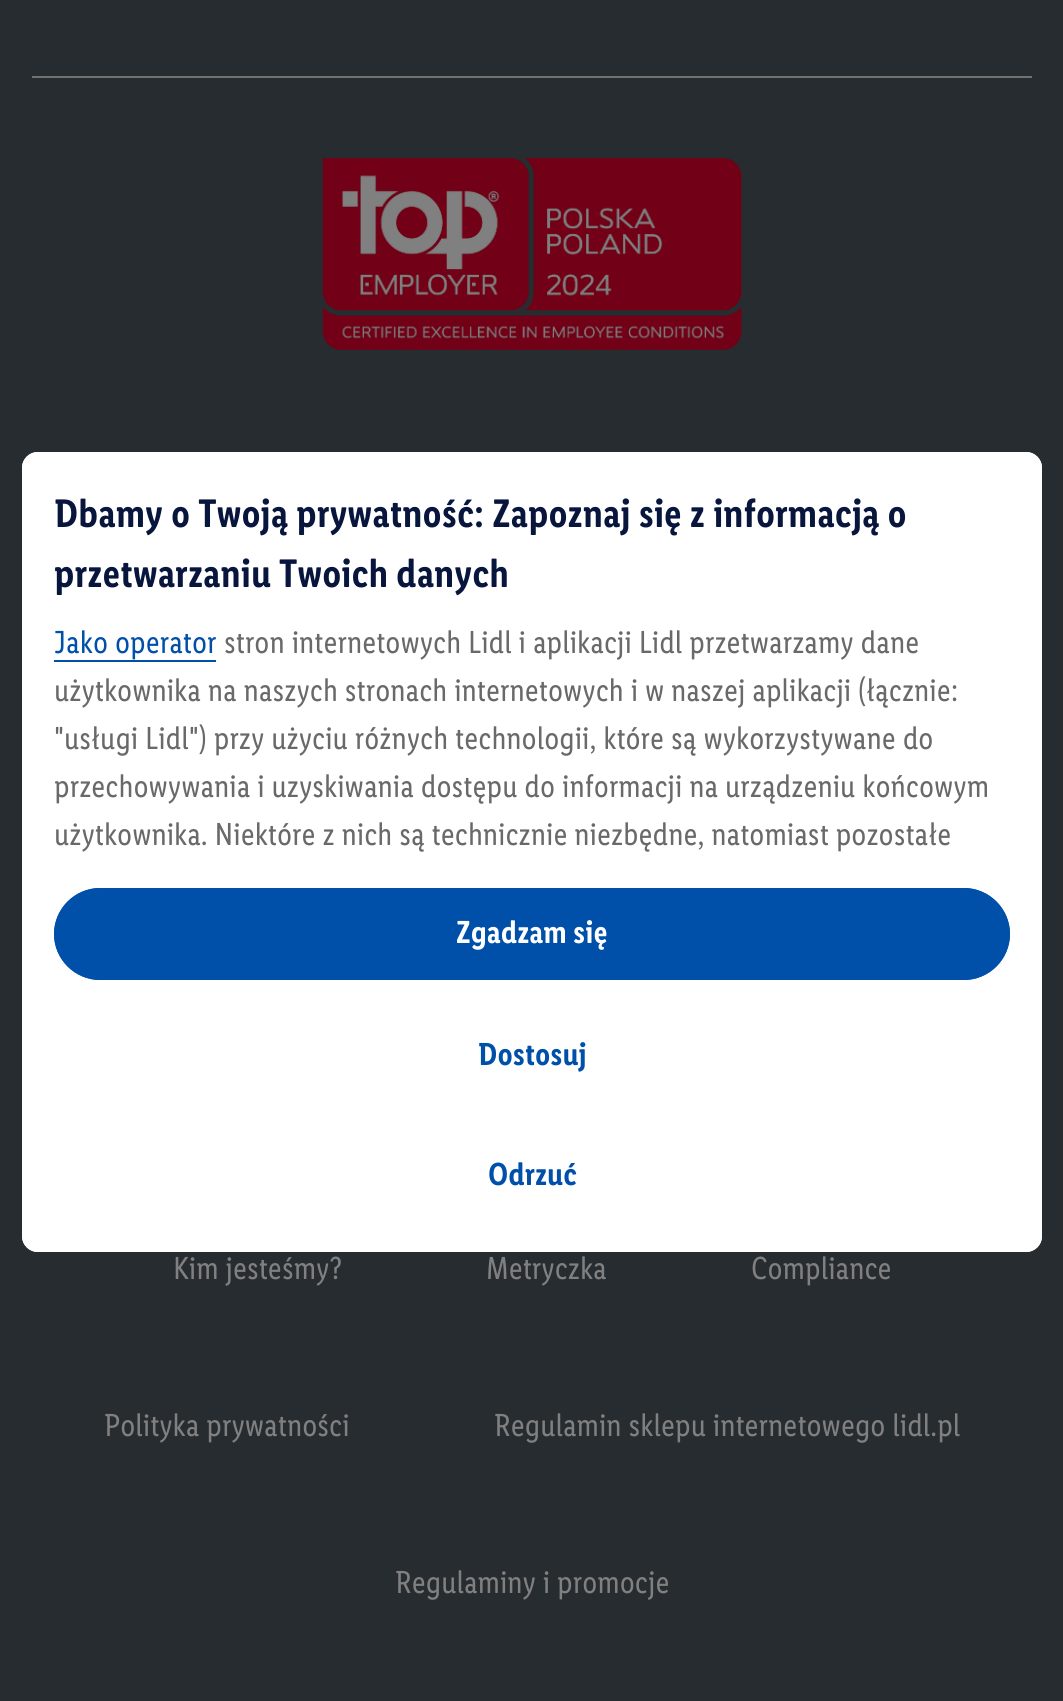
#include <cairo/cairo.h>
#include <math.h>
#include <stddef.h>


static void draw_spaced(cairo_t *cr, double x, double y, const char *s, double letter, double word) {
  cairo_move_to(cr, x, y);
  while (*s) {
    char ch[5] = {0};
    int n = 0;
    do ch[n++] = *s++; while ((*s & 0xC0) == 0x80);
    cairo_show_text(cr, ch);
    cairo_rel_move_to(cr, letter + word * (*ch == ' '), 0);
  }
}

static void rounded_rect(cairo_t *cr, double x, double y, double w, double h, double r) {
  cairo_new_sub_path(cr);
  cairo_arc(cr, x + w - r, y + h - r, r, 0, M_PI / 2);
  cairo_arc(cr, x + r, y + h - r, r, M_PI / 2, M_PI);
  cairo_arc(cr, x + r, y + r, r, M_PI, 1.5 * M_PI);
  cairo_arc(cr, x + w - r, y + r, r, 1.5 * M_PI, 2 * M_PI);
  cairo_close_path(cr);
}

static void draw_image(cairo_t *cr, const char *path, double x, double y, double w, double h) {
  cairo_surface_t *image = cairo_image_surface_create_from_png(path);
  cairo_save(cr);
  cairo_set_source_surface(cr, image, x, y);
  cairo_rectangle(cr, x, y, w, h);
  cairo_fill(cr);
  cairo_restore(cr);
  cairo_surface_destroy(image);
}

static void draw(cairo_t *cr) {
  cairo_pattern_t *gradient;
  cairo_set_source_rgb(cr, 39 / 255.0, 44 / 255.0, 49 / 255.0);
  cairo_paint(cr);
  cairo_set_source_rgb(cr, 1, 1, 1);
  rounded_rect(cr, 22, 452, 1020, 800, 16);
  cairo_fill(cr);
  gradient = cairo_pattern_create_linear(532, 452, 532, 532);
  cairo_pattern_add_color_stop_rgba(gradient, 0.3, 1, 1, 1, 1);
  cairo_pattern_add_color_stop_rgba(gradient, 1, 1, 1, 1, 0);
  cairo_set_source(cr, gradient);
  cairo_pattern_destroy(gradient);
  cairo_new_path(cr);
  cairo_move_to(cr, 38, 452);
  cairo_line_to(cr, 1026, 452);
  cairo_curve_to(cr, 1035, 452, 1042, 459, 1042, 468);
  cairo_line_to(cr, 1042, 532);
  cairo_line_to(cr, 22, 532);
  cairo_line_to(cr, 22, 468);
  cairo_curve_to(cr, 22, 459, 29, 452, 38, 452);
  cairo_close_path(cr);
  cairo_fill(cr);
  cairo_set_source_rgb(cr, 0, 80 / 255.0, 170 / 255.0);
  cairo_rectangle(cr, 54, 660, 162, 2);
  cairo_fill(cr);
  cairo_set_source_rgb(cr, 1, 1, 1);
  cairo_new_path(cr);
  cairo_move_to(cr, 22, 856);
  cairo_line_to(cr, 1042, 856);
  cairo_line_to(cr, 1042, 1236);
  cairo_curve_to(cr, 1042, 1245, 1035, 1252, 1026, 1252);
  cairo_line_to(cr, 38, 1252);
  cairo_curve_to(cr, 29, 1252, 22, 1245, 22, 1236);
  cairo_close_path(cr);
  cairo_fill(cr);
  cairo_set_source_rgb(cr, 0, 80 / 255.0, 170 / 255.0);
  rounded_rect(cr, 54, 888, 956, 92, 46);
  cairo_fill(cr);
  cairo_new_path(cr);
  cairo_move_to(cr, 100, 888);
  cairo_line_to(cr, 964, 888);
  cairo_curve_to(cr, 989, 888, 1010, 909, 1010, 934);
  cairo_curve_to(cr, 1010, 959, 989, 980, 964, 980);
  cairo_line_to(cr, 100, 980);
  cairo_curve_to(cr, 75, 980, 54, 959, 54, 934);
  cairo_curve_to(cr, 54, 909, 75, 888, 100, 888);
  cairo_close_path(cr);
  cairo_fill(cr);
  cairo_set_source_rgb(cr, 114 / 255.0, 114 / 255.0, 115 / 255.0);
  cairo_rectangle(cr, 32, 76, 1000, 2);
  cairo_fill(cr);
  draw_image(cr, "images/1.png", 322, 158, 420, 192);
  cairo_select_font_face(cr, "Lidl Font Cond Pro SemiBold", CAIRO_FONT_SLANT_NORMAL, CAIRO_FONT_WEIGHT_NORMAL);
  cairo_set_font_size(cr, 40);
  cairo_set_source_rgb(cr, 8 / 255.0, 22 / 255.0, 61 / 255.0);
  draw_spaced(cr, 54, 527, "Dbamy o Twoją prywatność: Zapoznaj się z informacją o", 0, 0.25);
  cairo_move_to(cr, 54, 587);
  cairo_show_text(cr, "przetwarzaniu Twoich danych");
  cairo_select_font_face(cr, "Lidl Font Cond Pro", CAIRO_FONT_SLANT_NORMAL, CAIRO_FONT_WEIGHT_NORMAL);
  cairo_set_font_size(cr, 32);
  cairo_set_source_rgb(cr, 0, 80 / 255.0, 170 / 255.0);
  cairo_move_to(cr, 54, 653);
  cairo_show_text(cr, "Jako operator");
  cairo_set_source_rgb(cr, 105 / 255.0, 105 / 255.0, 105 / 255.0);
  cairo_move_to(cr, 224, 653);
  cairo_show_text(cr, "stron internetowych Lidl i aplikacji Lidl przetwarzamy dane");
  cairo_move_to(cr, 54, 701);
  cairo_show_text(cr, "użytkownika na naszych stronach internetowych i w naszej aplikacji (łącznie:");
  cairo_move_to(cr, 54, 749);
  cairo_show_text(cr, "\"usługi Lidl\") przy użyciu różnych technologii, które są wykorzystywane do");
  cairo_move_to(cr, 54, 797);
  cairo_show_text(cr, "przechowywania i uzyskiwania dostępu do informacji na urządzeniu końcowym");
  cairo_move_to(cr, 54, 845);
  cairo_show_text(cr, "użytkownika. Niektóre z nich są technicznie niezbędne, natomiast pozostałe");
  cairo_select_font_face(cr, "Lidl Font Cond Pro SemiBold", CAIRO_FONT_SLANT_NORMAL, CAIRO_FONT_WEIGHT_NORMAL);
  cairo_set_source_rgb(cr, 1, 1, 1);
  cairo_move_to(cr, 456, 943);
  cairo_show_text(cr, "Zgadzam się");
  cairo_set_source_rgb(cr, 0, 80 / 255.0, 170 / 255.0);
  cairo_move_to(cr, 478, 1065);
  cairo_show_text(cr, "Dostosuj");
  cairo_move_to(cr, 488, 1185);
  cairo_show_text(cr, "Odrzuć");
  cairo_select_font_face(cr, "Lidl Font Cond Pro", CAIRO_FONT_SLANT_NORMAL, CAIRO_FONT_WEIGHT_NORMAL);
  cairo_set_source_rgb(cr, 128 / 255.0, 128 / 255.0, 128 / 255.0);
  cairo_move_to(cr, 173, 1279);
  cairo_show_text(cr, "Kim jesteśmy?");
  cairo_move_to(cr, 486, 1279);
  cairo_show_text(cr, "Metryczka");
  cairo_move_to(cr, 751, 1279);
  cairo_show_text(cr, "Compliance");
  cairo_move_to(cr, 104, 1436);
  cairo_show_text(cr, "Polityka prywatności");
  cairo_move_to(cr, 494, 1436);
  cairo_show_text(cr, "Regulamin sklepu internetowego lidl.pl");
  cairo_move_to(cr, 395, 1593);
  cairo_show_text(cr, "Regulaminy i promocje");
}

int main(void) {
  cairo_surface_t *surface = cairo_image_surface_create(CAIRO_FORMAT_RGB24, 1063, 1701);
  cairo_t *cr = cairo_create(surface);
  cairo_font_options_t *options = cairo_font_options_create();
  cairo_font_options_set_hint_metrics(options, CAIRO_HINT_METRICS_OFF);
  cairo_font_options_set_hint_style(options, CAIRO_HINT_STYLE_NONE);
  cairo_set_font_options(cr, options);
  cairo_set_miter_limit(cr, 4);
  draw(cr);
  cairo_surface_write_to_png(surface, "out.png");
  cairo_font_options_destroy(options);
  cairo_destroy(cr);
  cairo_surface_destroy(surface);
  return 0;
}
